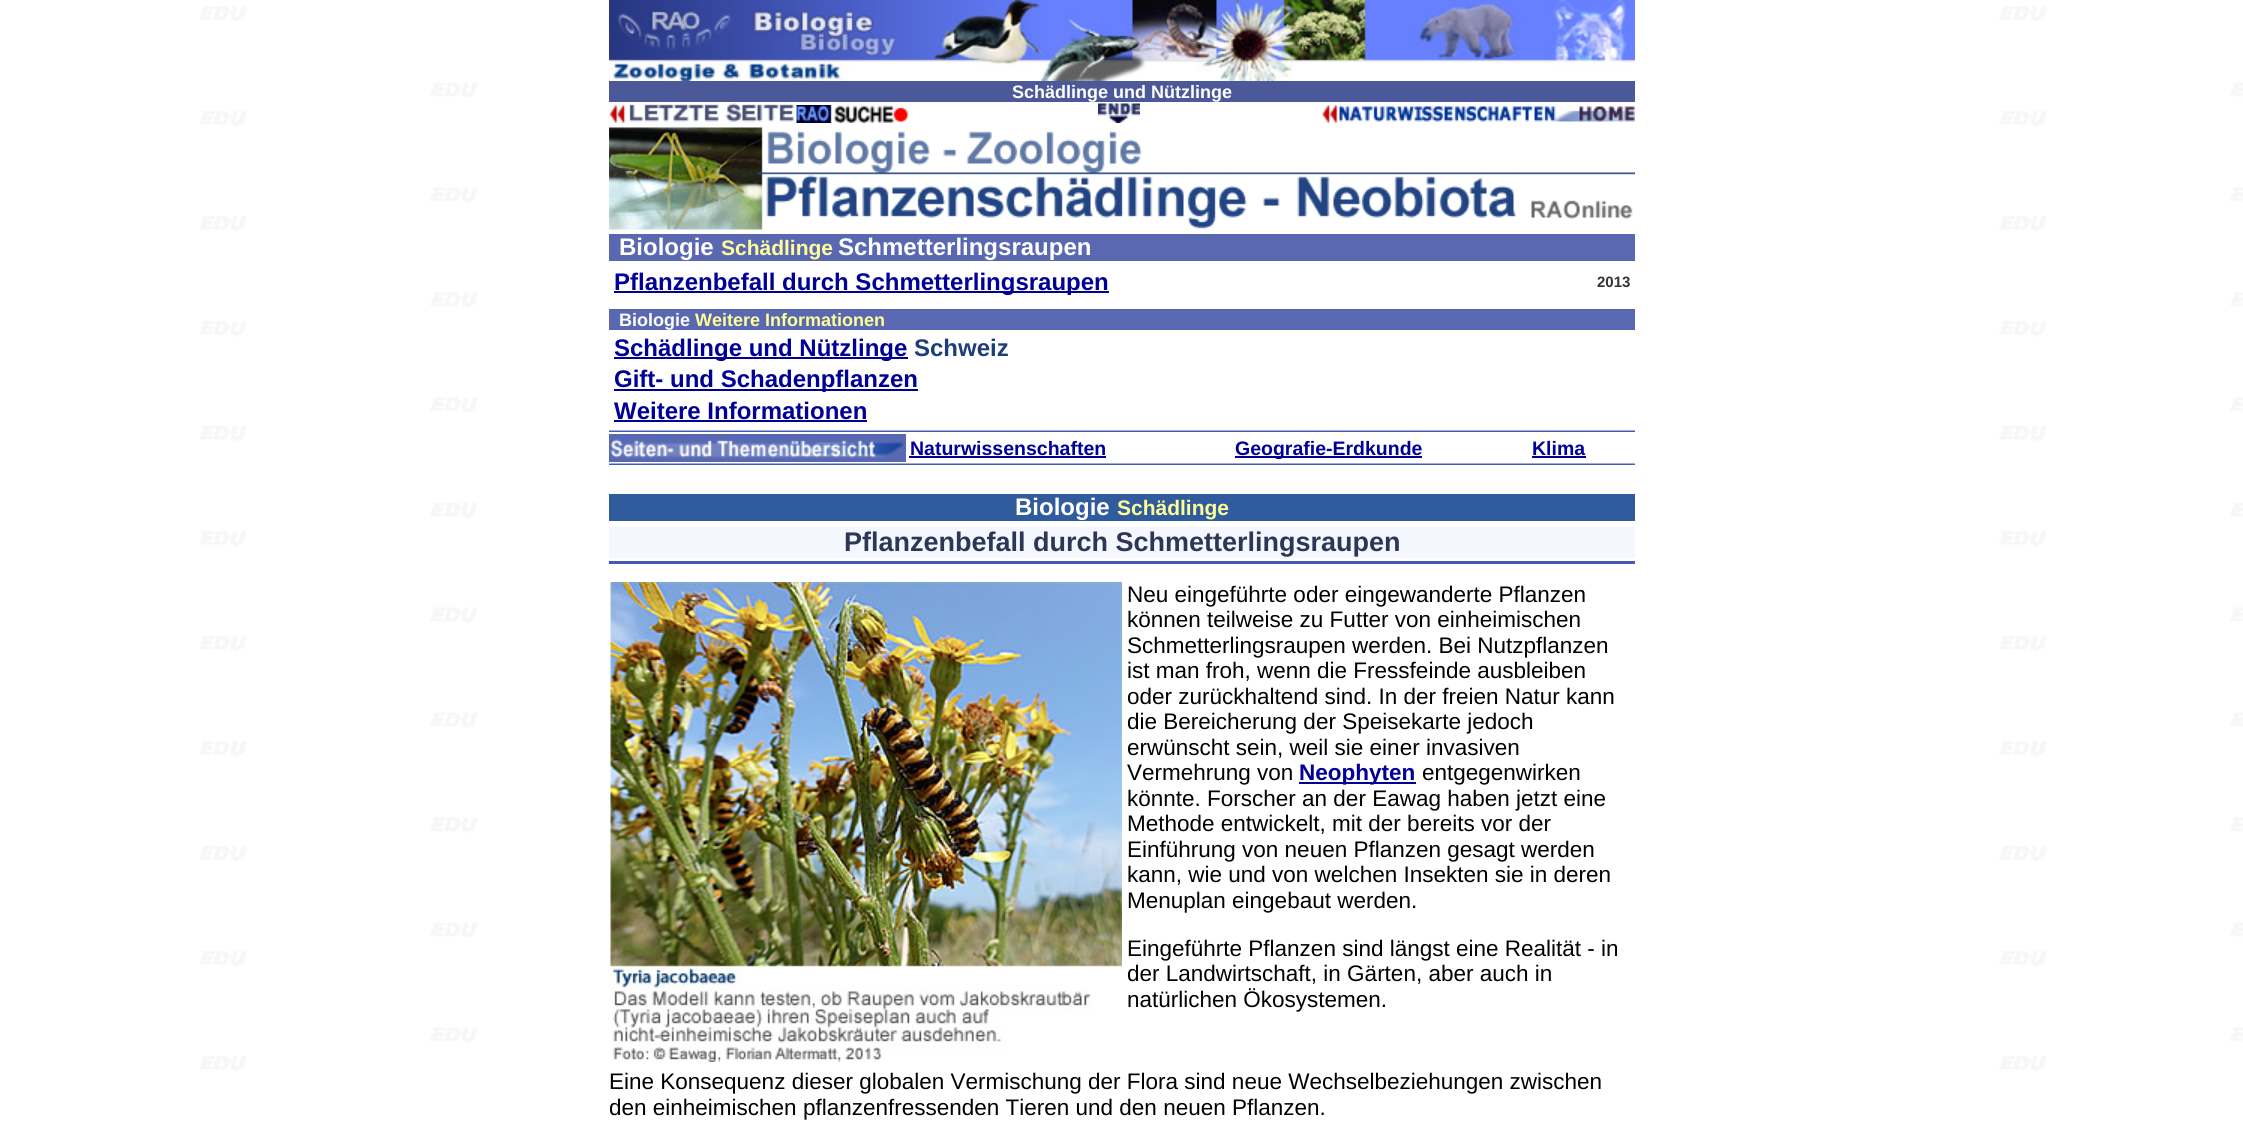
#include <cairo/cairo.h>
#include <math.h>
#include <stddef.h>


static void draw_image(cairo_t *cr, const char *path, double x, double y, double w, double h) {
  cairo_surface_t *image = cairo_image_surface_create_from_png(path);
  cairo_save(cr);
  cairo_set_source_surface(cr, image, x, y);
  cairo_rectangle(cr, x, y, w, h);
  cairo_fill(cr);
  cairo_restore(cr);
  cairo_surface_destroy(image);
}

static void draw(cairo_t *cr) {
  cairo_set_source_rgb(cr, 1, 1, 1);
  cairo_paint(cr);
  draw_image(cr, "images/1.png", 200, 6, 2043, 1065);
  cairo_set_source_rgb(cr, 1, 1, 1);
  cairo_rectangle(cr, 652, 111, 947, 960);
  cairo_fill(cr);
  draw_image(cr, "images/2.png", 609, 0, 1026, 81);
  cairo_set_source_rgb(cr, 76 / 255.0, 89 / 255.0, 153 / 255.0);
  cairo_rectangle(cr, 609, 81, 1026, 21);
  cairo_fill(cr);
  draw_image(cr, "images/3.png", 609, 103, 185, 20);
  draw_image(cr, "images/4.png", 796, 105, 112, 18);
  draw_image(cr, "images/5.png", 1098, 103, 42, 20);
  draw_image(cr, "images/6.png", 1321, 105, 314, 18);
  draw_image(cr, "images/7.png", 609, 127, 1026, 103);
  cairo_set_source_rgb(cr, 89 / 255.0, 104 / 255.0, 176 / 255.0);
  cairo_rectangle(cr, 609, 234, 1026, 27);
  cairo_fill(cr);
  cairo_set_source_rgb(cr, 0, 0, 153 / 255.0);
  cairo_rectangle(cr, 614, 291, 495, 2);
  cairo_fill(cr);
  cairo_set_source_rgb(cr, 89 / 255.0, 104 / 255.0, 176 / 255.0);
  cairo_rectangle(cr, 609, 309, 1026, 21);
  cairo_fill(cr);
  cairo_set_source_rgb(cr, 0, 0, 153 / 255.0);
  cairo_rectangle(cr, 614, 357, 294, 2);
  cairo_fill(cr);
  cairo_rectangle(cr, 614, 389, 304, 2);
  cairo_fill(cr);
  cairo_rectangle(cr, 614, 420, 253, 2);
  cairo_fill(cr);
  draw_image(cr, "images/8.png", 609, 430, 1026, 2);
  cairo_set_source_rgb(cr, 89 / 255.0, 104 / 255.0, 179 / 255.0);
  cairo_rectangle(cr, 609, 434, 297, 28);
  cairo_fill(cr);
  draw_image(cr, "images/9.png", 610, 439, 294, 19);
  cairo_set_source_rgb(cr, 0, 0, 153 / 255.0);
  cairo_rectangle(cr, 909, 456, 197, 2);
  cairo_fill(cr);
  cairo_rectangle(cr, 1235, 456, 187, 2);
  cairo_fill(cr);
  cairo_rectangle(cr, 1532, 456, 54, 2);
  cairo_fill(cr);
  draw_image(cr, "images/8.png", 609, 463, 1026, 2);
  cairo_set_source_rgb(cr, 48 / 255.0, 91 / 255.0, 156 / 255.0);
  cairo_rectangle(cr, 609, 494, 1026, 27);
  cairo_fill(cr);
  cairo_set_source_rgb(cr, 245 / 255.0, 247 / 255.0, 1);
  cairo_rectangle(cr, 609, 527, 1026, 31);
  cairo_fill(cr);
  cairo_set_source_rgb(cr, 71 / 255.0, 89 / 255.0, 179 / 255.0);
  cairo_rectangle(cr, 609, 561, 1026, 3);
  cairo_fill(cr);
  draw_image(cr, "images/10.png", 610, 582, 512, 480);
  cairo_set_source_rgb(cr, 0, 0, 153 / 255.0);
  cairo_rectangle(cr, 1299, 782, 117, 2);
  cairo_fill(cr);
  cairo_select_font_face(cr, "Liberation Sans", CAIRO_FONT_SLANT_NORMAL, CAIRO_FONT_WEIGHT_BOLD);
  cairo_set_font_size(cr, 18);
  cairo_set_source_rgb(cr, 1, 1, 1);
  cairo_move_to(cr, 1012, 98);
  cairo_show_text(cr, "Schädlinge und Nützlinge");
  cairo_set_font_size(cr, 24);
  cairo_move_to(cr, 619, 255);
  cairo_show_text(cr, "Biologie");
  cairo_set_font_size(cr, 21);
  cairo_set_source_rgb(cr, 1, 1, 153 / 255.0);
  cairo_move_to(cr, 721, 255);
  cairo_show_text(cr, "Schädlinge");
  cairo_set_font_size(cr, 24);
  cairo_set_source_rgb(cr, 1, 1, 1);
  cairo_move_to(cr, 838, 255);
  cairo_show_text(cr, "Schmetterlingsraupen");
  cairo_set_source_rgb(cr, 0, 0, 153 / 255.0);
  cairo_move_to(cr, 614, 290);
  cairo_show_text(cr, "Pflanzenbefall durch Schmetterlingsraupen");
  cairo_set_font_size(cr, 15);
  cairo_set_source_rgb(cr, 51 / 255.0, 51 / 255.0, 51 / 255.0);
  cairo_move_to(cr, 1597, 287);
  cairo_show_text(cr, "2013");
  cairo_set_font_size(cr, 18);
  cairo_set_source_rgb(cr, 1, 1, 1);
  cairo_move_to(cr, 619, 326);
  cairo_show_text(cr, "Biologie");
  cairo_set_source_rgb(cr, 1, 1, 153 / 255.0);
  cairo_move_to(cr, 695, 326);
  cairo_show_text(cr, "Weitere Informationen");
  cairo_set_font_size(cr, 24);
  cairo_set_source_rgb(cr, 0, 0, 153 / 255.0);
  cairo_move_to(cr, 614, 356);
  cairo_show_text(cr, "Schädlinge und Nützlinge");
  cairo_set_source_rgb(cr, 29 / 255.0, 61 / 255.0, 123 / 255.0);
  cairo_move_to(cr, 914, 356);
  cairo_show_text(cr, "Schweiz");
  cairo_set_source_rgb(cr, 0, 0, 153 / 255.0);
  cairo_move_to(cr, 614, 387);
  cairo_show_text(cr, "Gift- und Schadenpflanzen");
  cairo_move_to(cr, 614, 419);
  cairo_show_text(cr, "Weitere Informationen");
  cairo_set_font_size(cr, 19.5);
  cairo_move_to(cr, 910, 455);
  cairo_show_text(cr, "Naturwissenschaften");
  cairo_move_to(cr, 1235, 455);
  cairo_show_text(cr, "Geografie-Erdkunde");
  cairo_move_to(cr, 1532, 455);
  cairo_show_text(cr, "Klima");
  cairo_set_font_size(cr, 24);
  cairo_set_source_rgb(cr, 1, 1, 1);
  cairo_move_to(cr, 1015, 515);
  cairo_show_text(cr, "Biologie");
  cairo_set_font_size(cr, 21);
  cairo_set_source_rgb(cr, 1, 1, 153 / 255.0);
  cairo_move_to(cr, 1117, 515);
  cairo_show_text(cr, "Schädlinge");
  cairo_set_font_size(cr, 27);
  cairo_set_source_rgb(cr, 44 / 255.0, 55 / 255.0, 86 / 255.0);
  cairo_move_to(cr, 844, 551);
  cairo_show_text(cr, "Pflanzenbefall durch Schmetterlingsraupen");
  cairo_select_font_face(cr, "Liberation Sans", CAIRO_FONT_SLANT_NORMAL, CAIRO_FONT_WEIGHT_NORMAL);
  cairo_set_font_size(cr, 22.5);
  cairo_set_source_rgb(cr, 0, 0, 0);
  cairo_move_to(cr, 1127, 602);
  cairo_show_text(cr, "Neu eingeführte oder eingewanderte Pflanzen");
  cairo_move_to(cr, 1127, 627);
  cairo_show_text(cr, "können teilweise zu Futter von einheimischen");
  cairo_move_to(cr, 1127, 653);
  cairo_show_text(cr, "Schmetterlingsraupen werden. Bei Nutzpflanzen");
  cairo_move_to(cr, 1127, 678);
  cairo_show_text(cr, "ist man froh, wenn die Fressfeinde ausbleiben");
  cairo_move_to(cr, 1127, 704);
  cairo_show_text(cr, "oder zurückhaltend sind. In der freien Natur kann");
  cairo_move_to(cr, 1127, 729);
  cairo_show_text(cr, "die Bereicherung der Speisekarte jedoch");
  cairo_move_to(cr, 1127, 755);
  cairo_show_text(cr, "erwünscht sein, weil sie einer invasiven");
  cairo_move_to(cr, 1127, 780);
  cairo_show_text(cr, "Vermehrung von");
  cairo_select_font_face(cr, "Liberation Sans", CAIRO_FONT_SLANT_NORMAL, CAIRO_FONT_WEIGHT_BOLD);
  cairo_set_source_rgb(cr, 0, 0, 153 / 255.0);
  cairo_move_to(cr, 1299, 780);
  cairo_show_text(cr, "Neophyten");
  cairo_select_font_face(cr, "Liberation Sans", CAIRO_FONT_SLANT_NORMAL, CAIRO_FONT_WEIGHT_NORMAL);
  cairo_set_source_rgb(cr, 0, 0, 0);
  cairo_move_to(cr, 1422, 780);
  cairo_show_text(cr, "entgegenwirken");
  cairo_move_to(cr, 1127, 806);
  cairo_show_text(cr, "könnte. Forscher an der Eawag haben jetzt eine");
  cairo_move_to(cr, 1127, 831);
  cairo_show_text(cr, "Methode entwickelt, mit der bereits vor der");
  cairo_move_to(cr, 1127, 857);
  cairo_show_text(cr, "Einführung von neuen Pflanzen gesagt werden");
  cairo_move_to(cr, 1127, 882);
  cairo_show_text(cr, "kann, wie und von welchen Insekten sie in deren");
  cairo_move_to(cr, 1127, 908);
  cairo_show_text(cr, "Menuplan eingebaut werden.");
  cairo_move_to(cr, 1127, 956);
  cairo_show_text(cr, "Eingeführte Pflanzen sind längst eine Realität - in");
  cairo_move_to(cr, 1127, 981);
  cairo_show_text(cr, "der Landwirtschaft, in Gärten, aber auch in");
  cairo_move_to(cr, 1127, 1007);
  cairo_show_text(cr, "natürlichen Ökosystemen.");
  cairo_move_to(cr, 609, 1089);
  cairo_show_text(cr, "Eine Konsequenz dieser globalen Vermischung der Flora sind neue Wechselbeziehungen zwischen");
  cairo_move_to(cr, 609, 1115);
  cairo_show_text(cr, "den einheimischen pflanzenfressenden Tieren und den neuen Pflanzen.");
}

int main(void) {
  cairo_surface_t *surface = cairo_image_surface_create(CAIRO_FORMAT_RGB24, 2243, 1130);
  cairo_t *cr = cairo_create(surface);
  cairo_font_options_t *options = cairo_font_options_create();
  cairo_font_options_set_hint_metrics(options, CAIRO_HINT_METRICS_OFF);
  cairo_font_options_set_hint_style(options, CAIRO_HINT_STYLE_NONE);
  cairo_set_font_options(cr, options);
  cairo_set_miter_limit(cr, 4);
  draw(cr);
  cairo_surface_write_to_png(surface, "out.png");
  cairo_font_options_destroy(options);
  cairo_destroy(cr);
  cairo_surface_destroy(surface);
  return 0;
}
